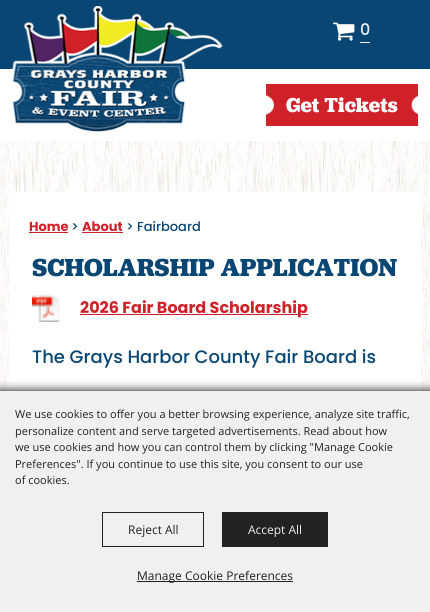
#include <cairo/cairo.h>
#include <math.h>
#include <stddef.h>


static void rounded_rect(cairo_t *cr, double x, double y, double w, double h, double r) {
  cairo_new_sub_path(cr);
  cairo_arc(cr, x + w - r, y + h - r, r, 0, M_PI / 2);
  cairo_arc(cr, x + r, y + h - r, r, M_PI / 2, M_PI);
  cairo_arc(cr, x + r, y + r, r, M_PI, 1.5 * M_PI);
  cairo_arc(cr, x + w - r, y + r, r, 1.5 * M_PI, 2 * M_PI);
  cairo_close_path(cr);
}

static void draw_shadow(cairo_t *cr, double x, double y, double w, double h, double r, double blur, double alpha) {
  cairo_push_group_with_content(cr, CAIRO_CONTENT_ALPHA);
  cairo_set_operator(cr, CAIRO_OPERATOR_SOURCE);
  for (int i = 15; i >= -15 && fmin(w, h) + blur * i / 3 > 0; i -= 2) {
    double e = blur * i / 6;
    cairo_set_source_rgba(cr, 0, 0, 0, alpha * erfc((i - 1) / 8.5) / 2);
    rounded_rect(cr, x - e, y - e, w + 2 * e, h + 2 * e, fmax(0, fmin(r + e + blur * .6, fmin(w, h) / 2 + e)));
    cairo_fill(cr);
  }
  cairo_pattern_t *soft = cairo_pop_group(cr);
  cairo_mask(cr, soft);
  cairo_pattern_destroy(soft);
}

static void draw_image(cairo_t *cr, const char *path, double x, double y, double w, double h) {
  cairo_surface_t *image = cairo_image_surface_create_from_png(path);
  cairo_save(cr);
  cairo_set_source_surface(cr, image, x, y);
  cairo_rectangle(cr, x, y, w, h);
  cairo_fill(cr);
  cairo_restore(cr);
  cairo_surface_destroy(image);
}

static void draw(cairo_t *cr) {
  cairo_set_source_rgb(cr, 1, 1, 1);
  cairo_paint(cr);
  draw_image(cr, "images/1.png", 0, 141, 430, 250);
  cairo_set_source_rgb(cr, 10 / 255.0, 70 / 255.0, 115 / 255.0);
  cairo_rectangle(cr, 0, 0, 430, 69);
  cairo_fill(cr);
  draw_image(cr, "images/2.png", 12, 6, 211, 126);
  draw_image(cr, "images/3.png", 333, 22, 22, 19);
  cairo_set_source_rgb(cr, 238 / 255.0, 238 / 255.0, 238 / 255.0);
  cairo_rectangle(cr, 360, 42, 10, 1);
  cairo_fill(cr);
  draw_image(cr, "images/4.png", 266, 84, 152, 42);
  cairo_set_source_rgb(cr, 1, 1, 1);
  cairo_rectangle(cr, 9, 192, 412, 199);
  cairo_fill(cr);
  cairo_set_source_rgb(cr, 208 / 255.0, 33 / 255.0, 41 / 255.0);
  cairo_rectangle(cr, 29, 232, 39, 1);
  cairo_fill(cr);
  cairo_rectangle(cr, 82, 232, 41, 1);
  cairo_fill(cr);
  draw_image(cr, "images/5.png", 32, 294, 28, 28);
  cairo_rectangle(cr, 80, 314, 228, 1);
  cairo_fill(cr);
  cairo_set_source_rgb(cr, 0, 0, 0);
  draw_shadow(cr, -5, 391, 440, 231, 0, 5, 1);
  cairo_set_source_rgb(cr, 240 / 255.0, 240 / 255.0, 240 / 255.0);
  cairo_rectangle(cr, 0, 391, 430, 221);
  cairo_fill(cr);
  cairo_rectangle(cr, 102.5, 512.5, 101, 34);
  cairo_set_source_rgb(cr, 34 / 255.0, 34 / 255.0, 34 / 255.0);
  cairo_set_line_width(cr, 1);
  cairo_stroke(cr);
  cairo_rectangle(cr, 222, 512, 106, 35);
  cairo_fill(cr);
  cairo_rectangle(cr, 137, 581, 156, 1);
  cairo_fill(cr);
  cairo_select_font_face(cr, "Poppins Medium", CAIRO_FONT_SLANT_NORMAL, CAIRO_FONT_WEIGHT_NORMAL);
  cairo_set_font_size(cr, 16);
  cairo_set_source_rgb(cr, 238 / 255.0, 238 / 255.0, 238 / 255.0);
  cairo_move_to(cr, 360, 35);
  cairo_show_text(cr, "0");
  cairo_select_font_face(cr, "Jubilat", CAIRO_FONT_SLANT_NORMAL, CAIRO_FONT_WEIGHT_BOLD);
  cairo_set_font_size(cr, 21);
  cairo_set_source_rgb(cr, 1, 1, 1);
  cairo_move_to(cr, 286, 112);
  cairo_show_text(cr, "Get Tickets");
  cairo_select_font_face(cr, "Poppins", CAIRO_FONT_SLANT_NORMAL, CAIRO_FONT_WEIGHT_BOLD);
  cairo_set_font_size(cr, 13);
  cairo_set_source_rgb(cr, 208 / 255.0, 33 / 255.0, 41 / 255.0);
  cairo_move_to(cr, 29, 231);
  cairo_show_text(cr, "Home");
  cairo_select_font_face(cr, "Poppins Medium", CAIRO_FONT_SLANT_NORMAL, CAIRO_FONT_WEIGHT_NORMAL);
  cairo_set_source_rgb(cr, 10 / 255.0, 70 / 255.0, 115 / 255.0);
  cairo_move_to(cr, 71, 231);
  cairo_show_text(cr, ">");
  cairo_select_font_face(cr, "Poppins", CAIRO_FONT_SLANT_NORMAL, CAIRO_FONT_WEIGHT_BOLD);
  cairo_set_source_rgb(cr, 208 / 255.0, 33 / 255.0, 41 / 255.0);
  cairo_move_to(cr, 82, 231);
  cairo_show_text(cr, "About");
  cairo_select_font_face(cr, "Poppins Medium", CAIRO_FONT_SLANT_NORMAL, CAIRO_FONT_WEIGHT_NORMAL);
  cairo_set_source_rgb(cr, 10 / 255.0, 70 / 255.0, 115 / 255.0);
  cairo_move_to(cr, 126, 231);
  cairo_show_text(cr, "> Fairboard");
  cairo_select_font_face(cr, "Jubilat", CAIRO_FONT_SLANT_NORMAL, CAIRO_FONT_WEIGHT_BOLD);
  cairo_set_font_size(cr, 25.6);
  cairo_move_to(cr, 32, 276);
  cairo_show_text(cr, "SCHOLARSHIP APPLICATION");
  cairo_select_font_face(cr, "Poppins", CAIRO_FONT_SLANT_NORMAL, CAIRO_FONT_WEIGHT_BOLD);
  cairo_set_font_size(cr, 16);
  cairo_set_source_rgb(cr, 208 / 255.0, 33 / 255.0, 41 / 255.0);
  cairo_move_to(cr, 80, 313);
  cairo_show_text(cr, "2026 Fair Board Scholarship");
  cairo_select_font_face(cr, "Poppins Medium", CAIRO_FONT_SLANT_NORMAL, CAIRO_FONT_WEIGHT_NORMAL);
  cairo_set_font_size(cr, 18);
  cairo_set_source_rgb(cr, 10 / 255.0, 70 / 255.0, 115 / 255.0);
  cairo_move_to(cr, 32, 363);
  cairo_show_text(cr, "The Grays Harbor County Fair Board is");
  cairo_select_font_face(cr, "Open Sans", CAIRO_FONT_SLANT_NORMAL, CAIRO_FONT_WEIGHT_NORMAL);
  cairo_set_font_size(cr, 11);
  cairo_set_source_rgb(cr, 34 / 255.0, 34 / 255.0, 34 / 255.0);
  cairo_move_to(cr, 15, 418);
  cairo_show_text(cr, "We use cookies to offer you a better browsing experience, analyze site traffic,");
  cairo_move_to(cr, 15, 435);
  cairo_show_text(cr, "personalize content and serve targeted advertisements. Read about how");
  cairo_move_to(cr, 15, 451);
  cairo_show_text(cr, "we use cookies and how you can control them by clicking \"Manage Cookie");
  cairo_move_to(cr, 15, 468);
  cairo_show_text(cr, "Preferences\". If you continue to use this site, you consent to our use");
  cairo_move_to(cr, 15, 484);
  cairo_show_text(cr, "of cookies.");
  cairo_set_font_size(cr, 12);
  cairo_move_to(cr, 128, 534);
  cairo_show_text(cr, "Reject All");
  cairo_set_source_rgb(cr, 238 / 255.0, 238 / 255.0, 238 / 255.0);
  cairo_move_to(cr, 248, 534);
  cairo_show_text(cr, "Accept All");
  cairo_set_source_rgb(cr, 34 / 255.0, 34 / 255.0, 34 / 255.0);
  cairo_move_to(cr, 137, 580);
  cairo_show_text(cr, "Manage Cookie Preferences");
}

int main(void) {
  cairo_surface_t *surface = cairo_image_surface_create(CAIRO_FORMAT_RGB24, 430, 612);
  cairo_t *cr = cairo_create(surface);
  cairo_font_options_t *options = cairo_font_options_create();
  cairo_font_options_set_hint_metrics(options, CAIRO_HINT_METRICS_OFF);
  cairo_font_options_set_hint_style(options, CAIRO_HINT_STYLE_NONE);
  cairo_set_font_options(cr, options);
  cairo_set_miter_limit(cr, 4);
  draw(cr);
  cairo_surface_write_to_png(surface, "out.png");
  cairo_font_options_destroy(options);
  cairo_destroy(cr);
  cairo_surface_destroy(surface);
  return 0;
}
